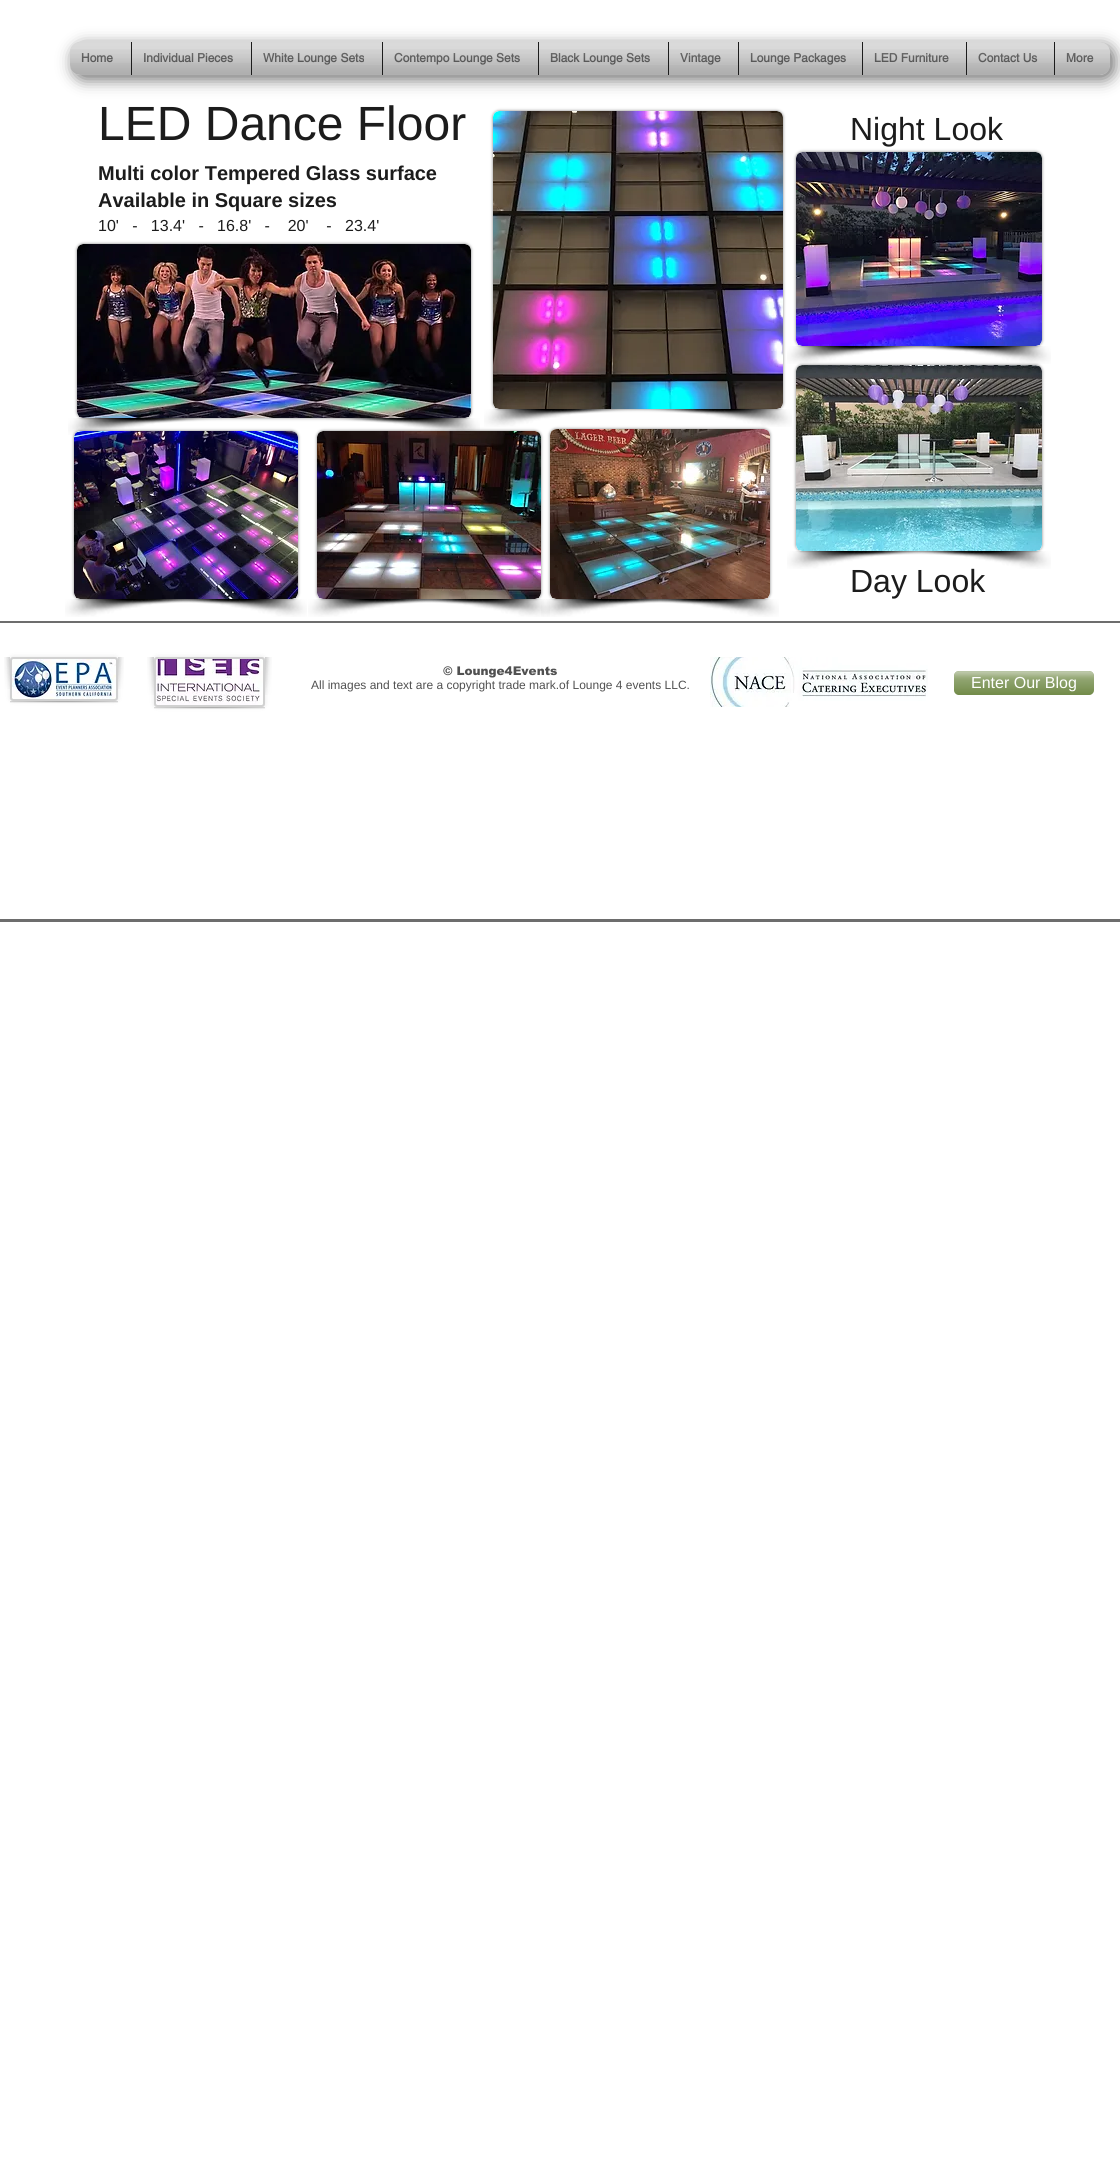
#include <cairo/cairo.h>
#include <math.h>
#include <stddef.h>


static void rounded_rect(cairo_t *cr, double x, double y, double w, double h, double r) {
  cairo_new_sub_path(cr);
  cairo_arc(cr, x + w - r, y + h - r, r, 0, M_PI / 2);
  cairo_arc(cr, x + r, y + h - r, r, M_PI / 2, M_PI);
  cairo_arc(cr, x + r, y + r, r, M_PI, 1.5 * M_PI);
  cairo_arc(cr, x + w - r, y + r, r, 1.5 * M_PI, 2 * M_PI);
  cairo_close_path(cr);
}

static void draw_shadow(cairo_t *cr, double x, double y, double w, double h, double r, double blur, double alpha) {
  cairo_push_group_with_content(cr, CAIRO_CONTENT_ALPHA);
  cairo_set_operator(cr, CAIRO_OPERATOR_SOURCE);
  for (int i = 15; i >= -15 && fmin(w, h) + blur * i / 3 > 0; i -= 2) {
    double e = blur * i / 6;
    cairo_set_source_rgba(cr, 0, 0, 0, alpha * erfc((i - 1) / 8.5) / 2);
    rounded_rect(cr, x - e, y - e, w + 2 * e, h + 2 * e, fmax(0, fmin(r + e + blur * .6, fmin(w, h) / 2 + e)));
    cairo_fill(cr);
  }
  cairo_pattern_t *soft = cairo_pop_group(cr);
  cairo_mask(cr, soft);
  cairo_pattern_destroy(soft);
}

static void draw_image(cairo_t *cr, const char *path, double x, double y, double w, double h) {
  cairo_surface_t *image = cairo_image_surface_create_from_png(path);
  cairo_save(cr);
  cairo_set_source_surface(cr, image, x, y);
  cairo_rectangle(cr, x, y, w, h);
  cairo_fill(cr);
  cairo_restore(cr);
  cairo_surface_destroy(image);
}

static void draw(cairo_t *cr) {
  cairo_set_source_rgb(cr, 1, 1, 1);
  cairo_paint(cr);
  cairo_set_source_rgb(cr, 0, 0, 0);
  draw_shadow(cr, 74, 46, 1040, 33, 10, 8, 0.59);
  draw_image(cr, "images/1.png", 70, 42, 1040, 10);
  draw_image(cr, "images/2.png", 70, 51, 1040, 24);
  cairo_set_source_rgb(cr, 209 / 255.0, 209 / 255.0, 209 / 255.0);
  cairo_new_path(cr);
  cairo_move_to(cr, 80, 42);
  cairo_line_to(cr, 131, 42);
  cairo_line_to(cr, 131, 75);
  cairo_line_to(cr, 80, 75);
  cairo_curve_to(cr, 74.5, 75, 70, 70.5, 70, 65);
  cairo_line_to(cr, 70, 52);
  cairo_curve_to(cr, 70, 46.5, 74.5, 42, 80, 42);
  cairo_close_path(cr);
  cairo_fill(cr);
  cairo_rectangle(cr, 132, 42, 119, 33);
  cairo_fill(cr);
  cairo_set_source_rgb(cr, 28 / 255.0, 28 / 255.0, 28 / 255.0);
  cairo_rectangle(cr, 131, 42, 1, 33);
  cairo_fill(cr);
  cairo_set_source_rgb(cr, 209 / 255.0, 209 / 255.0, 209 / 255.0);
  cairo_rectangle(cr, 252, 42, 130, 33);
  cairo_fill(cr);
  cairo_set_source_rgb(cr, 28 / 255.0, 28 / 255.0, 28 / 255.0);
  cairo_rectangle(cr, 251, 42, 1, 33);
  cairo_fill(cr);
  cairo_set_source_rgb(cr, 209 / 255.0, 209 / 255.0, 209 / 255.0);
  cairo_rectangle(cr, 383, 42, 155, 33);
  cairo_fill(cr);
  cairo_set_source_rgb(cr, 28 / 255.0, 28 / 255.0, 28 / 255.0);
  cairo_rectangle(cr, 382, 42, 1, 33);
  cairo_fill(cr);
  cairo_set_source_rgb(cr, 209 / 255.0, 209 / 255.0, 209 / 255.0);
  cairo_rectangle(cr, 539, 42, 129, 33);
  cairo_fill(cr);
  cairo_set_source_rgb(cr, 28 / 255.0, 28 / 255.0, 28 / 255.0);
  cairo_rectangle(cr, 538, 42, 1, 33);
  cairo_fill(cr);
  cairo_set_source_rgb(cr, 209 / 255.0, 209 / 255.0, 209 / 255.0);
  cairo_rectangle(cr, 669, 42, 69, 33);
  cairo_fill(cr);
  cairo_set_source_rgb(cr, 28 / 255.0, 28 / 255.0, 28 / 255.0);
  cairo_rectangle(cr, 668, 42, 1, 33);
  cairo_fill(cr);
  cairo_set_source_rgb(cr, 209 / 255.0, 209 / 255.0, 209 / 255.0);
  cairo_rectangle(cr, 739, 42, 123, 33);
  cairo_fill(cr);
  cairo_set_source_rgb(cr, 28 / 255.0, 28 / 255.0, 28 / 255.0);
  cairo_rectangle(cr, 738, 42, 1, 33);
  cairo_fill(cr);
  cairo_set_source_rgb(cr, 209 / 255.0, 209 / 255.0, 209 / 255.0);
  cairo_rectangle(cr, 863, 42, 103, 33);
  cairo_fill(cr);
  cairo_set_source_rgb(cr, 28 / 255.0, 28 / 255.0, 28 / 255.0);
  cairo_rectangle(cr, 862, 42, 1, 33);
  cairo_fill(cr);
  cairo_set_source_rgb(cr, 209 / 255.0, 209 / 255.0, 209 / 255.0);
  cairo_rectangle(cr, 967, 42, 87, 33);
  cairo_fill(cr);
  cairo_set_source_rgb(cr, 28 / 255.0, 28 / 255.0, 28 / 255.0);
  cairo_rectangle(cr, 966, 42, 1, 33);
  cairo_fill(cr);
  cairo_set_source_rgb(cr, 209 / 255.0, 209 / 255.0, 209 / 255.0);
  cairo_new_path(cr);
  cairo_move_to(cr, 1054, 42);
  cairo_line_to(cr, 1100, 42);
  cairo_curve_to(cr, 1105.5, 42, 1110, 46.5, 1110, 52);
  cairo_line_to(cr, 1110, 65);
  cairo_curve_to(cr, 1110, 70.5, 1105.5, 75, 1100, 75);
  cairo_line_to(cr, 1054, 75);
  cairo_close_path(cr);
  cairo_fill(cr);
  cairo_set_source_rgb(cr, 28 / 255.0, 28 / 255.0, 28 / 255.0);
  cairo_rectangle(cr, 1054, 42, 1, 33);
  cairo_fill(cr);
  cairo_set_source_rgb(cr, 0, 0, 0);
  draw_shadow(cr, 493, 111, 290, 298, 6, 1.5, 0.5);
  cairo_set_source_rgb(cr, 1, 1, 1);
  rounded_rect(cr, 493, 111, 290, 298, 6);
  cairo_fill(cr);
  draw_image(cr, "images/23.png", 493, 111, 290, 298);
  draw_image(cr, "images/24.png", 484, 409, 154, 18);
  draw_image(cr, "images/25.png", 638, 409, 154, 18);
  cairo_set_source_rgb(cr, 0, 0, 0);
  draw_shadow(cr, 796, 152, 246, 194, 6, 1.5, 0.5);
  cairo_set_source_rgb(cr, 1, 1, 1);
  rounded_rect(cr, 796, 152, 246, 194, 6);
  cairo_fill(cr);
  draw_image(cr, "images/26.png", 796, 152, 246, 194);
  draw_image(cr, "images/24.png", 787, 346, 154, 18);
  draw_image(cr, "images/27.png", 904, 346, 147, 18);
  cairo_set_source_rgb(cr, 0, 0, 0);
  draw_shadow(cr, 77, 244, 394, 174, 6, 1.5, 0.5);
  cairo_set_source_rgb(cr, 1, 1, 1);
  rounded_rect(cr, 77, 244, 394, 174, 6);
  cairo_fill(cr);
  draw_image(cr, "images/28.png", 77, 244, 394, 174);
  draw_image(cr, "images/29.png", 68, 418, 154, 17);
  draw_image(cr, "images/30.png", 326, 418, 154, 13);
  cairo_set_source_rgb(cr, 0, 0, 0);
  draw_shadow(cr, 74, 431, 224, 168, 6, 1.5, 0.5);
  cairo_set_source_rgb(cr, 1, 1, 1);
  rounded_rect(cr, 74, 431, 224, 168, 6);
  cairo_fill(cr);
  draw_image(cr, "images/31.png", 74, 431, 224, 168);
  draw_image(cr, "images/24.png", 65, 599, 154, 18);
  draw_image(cr, "images/32.png", 168, 599, 139, 18);
  cairo_set_source_rgb(cr, 0, 0, 0);
  draw_shadow(cr, 317, 431, 224, 168, 6, 1.5, 0.5);
  cairo_set_source_rgb(cr, 1, 1, 1);
  rounded_rect(cr, 317, 431, 224, 168, 6);
  cairo_fill(cr);
  draw_image(cr, "images/33.png", 317, 431, 224, 168);
  draw_image(cr, "images/24.png", 308, 599, 154, 18);
  draw_image(cr, "images/32.png", 411, 599, 139, 18);
  cairo_set_source_rgb(cr, 0, 0, 0);
  draw_shadow(cr, 550, 429, 220, 170, 6, 1.5, 0.5);
  cairo_set_source_rgb(cr, 1, 1, 1);
  rounded_rect(cr, 550, 429, 220, 170, 6);
  cairo_fill(cr);
  draw_image(cr, "images/34.png", 550, 429, 220, 170);
  draw_image(cr, "images/35.png", 541, 599, 154, 18);
  draw_image(cr, "images/36.png", 641, 599, 138, 18);
  cairo_set_source_rgb(cr, 0, 0, 0);
  draw_shadow(cr, 796, 365, 246, 186, 6, 1.5, 0.5);
  cairo_set_source_rgb(cr, 1, 1, 1);
  rounded_rect(cr, 796, 365, 246, 186, 6);
  cairo_fill(cr);
  draw_image(cr, "images/37.png", 796, 365, 246, 186);
  draw_image(cr, "images/24.png", 787, 551, 154, 18);
  draw_image(cr, "images/27.png", 904, 551, 147, 18);
  cairo_set_source_rgb(cr, 109 / 255.0, 109 / 255.0, 109 / 255.0);
  cairo_rectangle(cr, 0, 621, 1120, 2);
  cairo_fill(cr);
  cairo_rectangle(cr, 0, 919, 1120, 3);
  cairo_fill(cr);
  cairo_set_source_rgb(cr, 0, 0, 0);
  draw_shadow(cr, 10, 657, 108, 44, 3, 2.5, 0.1);
  cairo_set_source_rgb(cr, 209 / 255.0, 209 / 255.0, 209 / 255.0);
  rounded_rect(cr, 11, 658, 106, 42, 2);
  cairo_fill_preserve(cr);
  cairo_stroke(cr);
  draw_image(cr, "images/38.png", 12, 659, 104, 40);
  draw_image(cr, "images/39.png", 10, 701, 108, 2);
  draw_image(cr, "images/40.png", 4, 657, 6, 32);
  draw_image(cr, "images/41.png", 118, 657, 6, 32);
  cairo_set_source_rgb(cr, 0, 0, 0);
  draw_shadow(cr, 154, 657, 111, 50, 3, 2.5, 0.1);
  cairo_set_source_rgb(cr, 209 / 255.0, 209 / 255.0, 209 / 255.0);
  rounded_rect(cr, 155, 658, 109, 48, 2);
  cairo_fill_preserve(cr);
  cairo_stroke(cr);
  draw_image(cr, "images/42.png", 156, 659, 107, 46);
  draw_image(cr, "images/43.png", 154, 707, 111, 2);
  draw_image(cr, "images/44.png", 147, 657, 7, 38);
  draw_image(cr, "images/45.png", 265, 657, 7, 38);
  draw_image(cr, "images/46.png", 710, 657, 218, 50);
  cairo_set_source_rgb(cr, 87 / 255.0, 117 / 255.0, 38 / 255.0);
  rounded_rect(cr, 954, 671, 140, 24, 5);
  cairo_fill(cr);
  draw_image(cr, "images/47.png", 954, 671, 140, 24);
  cairo_select_font_face(cr, "helvetica", CAIRO_FONT_SLANT_NORMAL, CAIRO_FONT_WEIGHT_BOLD);
  cairo_set_font_size(cr, 12);
  cairo_set_source_rgb(cr, 81 / 255.0, 81 / 255.0, 81 / 255.0);
  cairo_move_to(cr, 81, 62);
  cairo_show_text(cr, "Home");
  draw_image(cr, "images/3.png", 70, 42, 61, 21);
  draw_image(cr, "images/4.png", 70, 49, 61, 26);
  cairo_move_to(cr, 143, 62);
  cairo_show_text(cr, "Individual Pieces");
  draw_image(cr, "images/5.png", 132, 42, 119, 21);
  draw_image(cr, "images/6.png", 132, 49, 119, 26);
  cairo_move_to(cr, 263, 62);
  cairo_show_text(cr, "White Lounge Sets");
  draw_image(cr, "images/7.png", 252, 42, 130, 23);
  draw_image(cr, "images/8.png", 252, 49, 130, 26);
  cairo_move_to(cr, 394, 62);
  cairo_show_text(cr, "Contempo Lounge Sets");
  draw_image(cr, "images/9.png", 383, 42, 155, 23);
  draw_image(cr, "images/10.png", 383, 49, 155, 26);
  cairo_move_to(cr, 550, 62);
  cairo_show_text(cr, "Black Lounge Sets");
  draw_image(cr, "images/11.png", 539, 42, 129, 23);
  draw_image(cr, "images/12.png", 539, 49, 129, 26);
  cairo_move_to(cr, 680, 62);
  cairo_show_text(cr, "Vintage");
  draw_image(cr, "images/13.png", 669, 42, 69, 23);
  draw_image(cr, "images/14.png", 669, 49, 69, 26);
  cairo_move_to(cr, 750, 62);
  cairo_show_text(cr, "Lounge Packages");
  draw_image(cr, "images/15.png", 739, 42, 123, 23);
  draw_image(cr, "images/16.png", 739, 49, 123, 26);
  cairo_move_to(cr, 874, 62);
  cairo_show_text(cr, "LED Furniture");
  draw_image(cr, "images/17.png", 863, 42, 103, 21);
  draw_image(cr, "images/18.png", 863, 49, 103, 26);
  cairo_move_to(cr, 978, 62);
  cairo_show_text(cr, "Contact Us");
  draw_image(cr, "images/19.png", 967, 42, 87, 21);
  draw_image(cr, "images/20.png", 967, 49, 87, 26);
  cairo_move_to(cr, 1066, 62);
  cairo_show_text(cr, "More");
  draw_image(cr, "images/21.png", 1055, 42, 55, 21);
  draw_image(cr, "images/22.png", 1055, 49, 55, 26);
  cairo_select_font_face(cr, "Liberation Sans", CAIRO_FONT_SLANT_NORMAL, CAIRO_FONT_WEIGHT_NORMAL);
  cairo_set_font_size(cr, 48);
  cairo_set_source_rgb(cr, 28 / 255.0, 28 / 255.0, 28 / 255.0);
  cairo_move_to(cr, 98, 140);
  cairo_show_text(cr, "LED Dance Floor");
  cairo_set_font_size(cr, 32);
  cairo_move_to(cr, 850, 140);
  cairo_show_text(cr, "Night Look");
  cairo_select_font_face(cr, "Liberation Sans", CAIRO_FONT_SLANT_NORMAL, CAIRO_FONT_WEIGHT_BOLD);
  cairo_set_font_size(cr, 20);
  cairo_move_to(cr, 98, 180);
  cairo_show_text(cr, "Multi color Tempered Glass surface");
  cairo_move_to(cr, 98, 207);
  cairo_show_text(cr, "Available in Square sizes");
  cairo_select_font_face(cr, "Liberation Sans", CAIRO_FONT_SLANT_NORMAL, CAIRO_FONT_WEIGHT_NORMAL);
  cairo_set_font_size(cr, 16);
  cairo_move_to(cr, 98, 231);
  cairo_show_text(cr, "10'   -   13.4'   -   16.8'   -    20'    -   23.4'");
  cairo_set_font_size(cr, 32);
  cairo_move_to(cr, 850, 592);
  cairo_show_text(cr, "Day Look");
  cairo_select_font_face(cr, "arial Black", CAIRO_FONT_SLANT_NORMAL, CAIRO_FONT_WEIGHT_NORMAL);
  cairo_set_font_size(cr, 12);
  cairo_set_source_rgb(cr, 81 / 255.0, 81 / 255.0, 81 / 255.0);
  cairo_move_to(cr, 443, 675);
  cairo_show_text(cr, "© Lounge4Events");
  cairo_select_font_face(cr, "Liberation Sans", CAIRO_FONT_SLANT_NORMAL, CAIRO_FONT_WEIGHT_NORMAL);
  cairo_move_to(cr, 311, 689);
  cairo_show_text(cr, "All images and text are a copyright trade mark.of Lounge 4 events LLC.");
  cairo_set_font_size(cr, 16);
  cairo_set_source_rgb(cr, 1, 1, 1);
  cairo_move_to(cr, 971, 688);
  cairo_show_text(cr, "Enter Our Blog");
}

int main(void) {
  cairo_surface_t *surface = cairo_image_surface_create(CAIRO_FORMAT_RGB24, 1120, 2175);
  cairo_t *cr = cairo_create(surface);
  cairo_font_options_t *options = cairo_font_options_create();
  cairo_font_options_set_hint_metrics(options, CAIRO_HINT_METRICS_OFF);
  cairo_font_options_set_hint_style(options, CAIRO_HINT_STYLE_NONE);
  cairo_set_font_options(cr, options);
  cairo_set_miter_limit(cr, 4);
  draw(cr);
  cairo_surface_write_to_png(surface, "out.png");
  cairo_font_options_destroy(options);
  cairo_destroy(cr);
  cairo_surface_destroy(surface);
  return 0;
}
